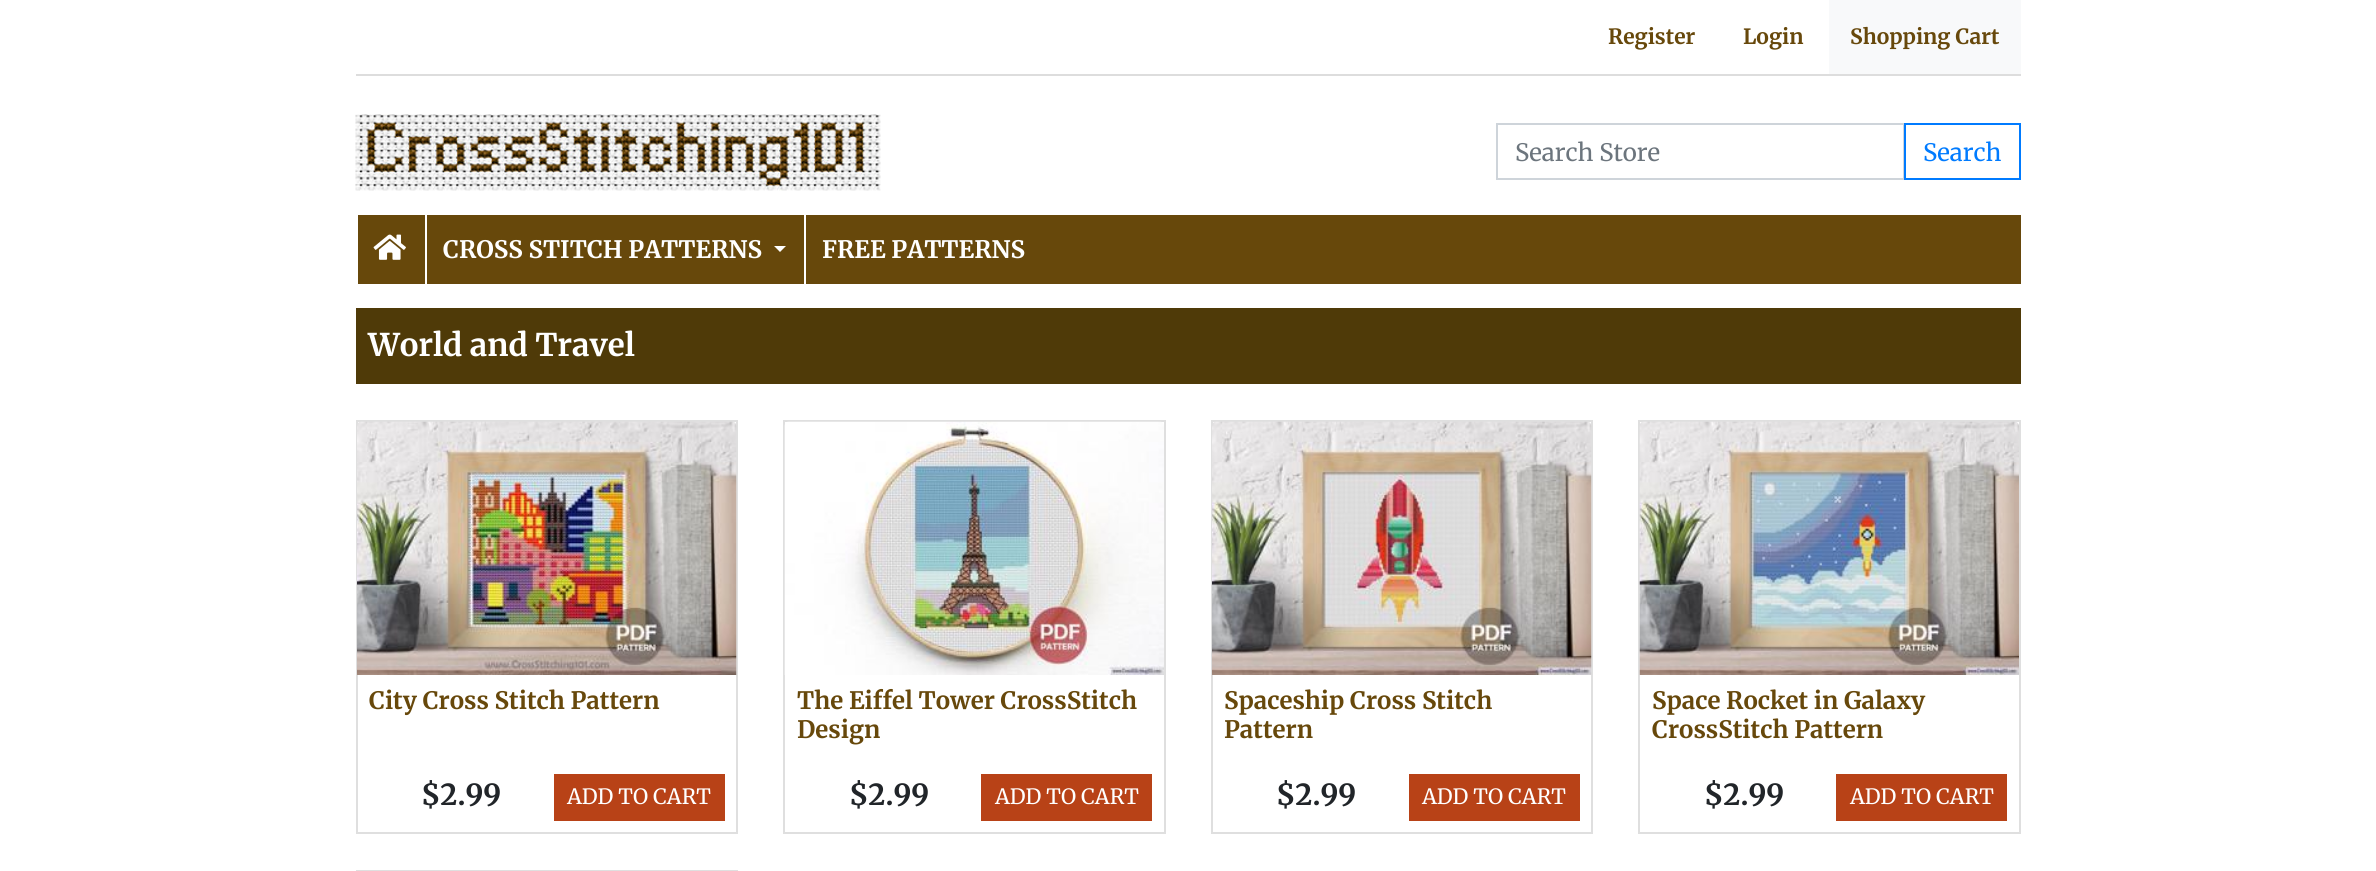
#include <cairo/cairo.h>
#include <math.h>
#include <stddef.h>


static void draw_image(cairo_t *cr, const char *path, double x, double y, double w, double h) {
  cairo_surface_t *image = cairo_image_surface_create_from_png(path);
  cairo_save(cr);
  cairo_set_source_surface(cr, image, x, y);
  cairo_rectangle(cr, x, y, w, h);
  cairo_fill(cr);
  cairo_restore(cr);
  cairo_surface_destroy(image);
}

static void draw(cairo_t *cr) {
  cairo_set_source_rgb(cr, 1, 1, 1);
  cairo_paint(cr);
  cairo_set_source_rgb(cr, 221 / 255.0, 221 / 255.0, 221 / 255.0);
  cairo_rectangle(cr, 356, 74, 1665, 2);
  cairo_fill(cr);
  cairo_set_source_rgb(cr, 248 / 255.0, 249 / 255.0, 250 / 255.0);
  cairo_rectangle(cr, 1829, 0, 192, 74);
  cairo_fill(cr);
  draw_image(cr, "images/1.png", 355, 114, 526, 77);
  cairo_rectangle(cr, 1497, 124, 407, 55);
  cairo_set_source_rgb(cr, 206 / 255.0, 212 / 255.0, 218 / 255.0);
  cairo_stroke(cr);
  cairo_rectangle(cr, 1905, 124, 115, 55);
  cairo_set_source_rgb(cr, 0, 123 / 255.0, 1);
  cairo_stroke(cr);
  cairo_set_source_rgb(cr, 103 / 255.0, 72 / 255.0, 11 / 255.0);
  cairo_rectangle(cr, 358, 215, 1663, 69);
  cairo_fill(cr);
  draw_image(cr, "images/2.png", 373, 234, 33, 26);
  cairo_set_source_rgb(cr, 1, 1, 1);
  cairo_rectangle(cr, 425, 215, 2, 69);
  cairo_fill(cr);
  cairo_new_path(cr);
  cairo_move_to(cr, 774, 246);
  cairo_line_to(cr, 786, 246);
  cairo_line_to(cr, 780, 252);
  cairo_close_path(cr);
  cairo_fill(cr);
  cairo_rectangle(cr, 804, 215, 2, 69);
  cairo_fill(cr);
  cairo_set_source_rgb(cr, 79 / 255.0, 58 / 255.0, 8 / 255.0);
  cairo_rectangle(cr, 356, 308, 1665, 76);
  cairo_fill(cr);
  cairo_rectangle(cr, 357, 421, 380, 412);
  cairo_set_source_rgb(cr, 223 / 255.0, 223 / 255.0, 223 / 255.0);
  cairo_stroke(cr);
  draw_image(cr, "images/3.png", 357, 421, 380, 254);
  cairo_set_source_rgb(cr, 184 / 255.0, 66 / 255.0, 23 / 255.0);
  cairo_rectangle(cr, 554, 774, 171, 47);
  cairo_fill(cr);
  cairo_rectangle(cr, 784, 421, 381, 412);
  cairo_set_source_rgb(cr, 223 / 255.0, 223 / 255.0, 223 / 255.0);
  cairo_stroke(cr);
  draw_image(cr, "images/4.png", 784, 421, 380, 254);
  cairo_set_source_rgb(cr, 184 / 255.0, 66 / 255.0, 23 / 255.0);
  cairo_rectangle(cr, 981, 774, 171, 47);
  cairo_fill(cr);
  cairo_rectangle(cr, 1212, 421, 380, 412);
  cairo_set_source_rgb(cr, 223 / 255.0, 223 / 255.0, 223 / 255.0);
  cairo_stroke(cr);
  draw_image(cr, "images/5.png", 1212, 421, 380, 254);
  cairo_set_source_rgb(cr, 184 / 255.0, 66 / 255.0, 23 / 255.0);
  cairo_rectangle(cr, 1409, 774, 171, 47);
  cairo_fill(cr);
  cairo_rectangle(cr, 1639, 421, 381, 412);
  cairo_set_source_rgb(cr, 223 / 255.0, 223 / 255.0, 223 / 255.0);
  cairo_stroke(cr);
  draw_image(cr, "images/6.png", 1639, 421, 380, 254);
  cairo_set_source_rgb(cr, 184 / 255.0, 66 / 255.0, 23 / 255.0);
  cairo_rectangle(cr, 1836, 774, 171, 47);
  cairo_fill(cr);
  cairo_rectangle(cr, 357, 871, 380, 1);
  cairo_set_source_rgb(cr, 223 / 255.0, 223 / 255.0, 223 / 255.0);
  cairo_stroke(cr);
  cairo_select_font_face(cr, "Merriweather", CAIRO_FONT_SLANT_NORMAL, CAIRO_FONT_WEIGHT_BOLD);
  cairo_set_font_size(cr, 21);
  cairo_set_source_rgb(cr, 103 / 255.0, 72 / 255.0, 11 / 255.0);
  cairo_move_to(cr, 1608, 44);
  cairo_show_text(cr, "Register");
  cairo_move_to(cr, 1743, 44);
  cairo_show_text(cr, "Login");
  cairo_move_to(cr, 1850, 44);
  cairo_show_text(cr, "Shopping Cart");
  cairo_select_font_face(cr, "Merriweather", CAIRO_FONT_SLANT_NORMAL, CAIRO_FONT_WEIGHT_NORMAL);
  cairo_set_font_size(cr, 24);
  cairo_set_source_rgb(cr, 108 / 255.0, 117 / 255.0, 125 / 255.0);
  cairo_move_to(cr, 1515, 161);
  cairo_show_text(cr, "Search Store");
  cairo_set_source_rgb(cr, 0, 123 / 255.0, 1);
  cairo_move_to(cr, 1923, 161);
  cairo_show_text(cr, "Search");
  cairo_select_font_face(cr, "Merriweather", CAIRO_FONT_SLANT_NORMAL, CAIRO_FONT_WEIGHT_BOLD);
  cairo_set_source_rgb(cr, 1, 1, 1);
  cairo_move_to(cr, 443, 258);
  cairo_show_text(cr, "CROSS STITCH PATTERNS");
  cairo_move_to(cr, 822, 258);
  cairo_show_text(cr, "FREE PATTERNS");
  cairo_set_font_size(cr, 31.25);
  cairo_move_to(cr, 368, 356);
  cairo_show_text(cr, "World and Travel");
  cairo_set_font_size(cr, 24);
  cairo_set_source_rgb(cr, 103 / 255.0, 72 / 255.0, 11 / 255.0);
  cairo_move_to(cr, 369, 709);
  cairo_show_text(cr, "City Cross Stitch Pattern");
  cairo_set_font_size(cr, 29);
  cairo_set_source_rgb(cr, 33 / 255.0, 37 / 255.0, 41 / 255.0);
  cairo_move_to(cr, 421, 805);
  cairo_show_text(cr, "$2.99");
  cairo_select_font_face(cr, "Merriweather", CAIRO_FONT_SLANT_NORMAL, CAIRO_FONT_WEIGHT_NORMAL);
  cairo_set_font_size(cr, 21);
  cairo_set_source_rgb(cr, 1, 1, 1);
  cairo_move_to(cr, 567, 804);
  cairo_show_text(cr, "ADD TO CART");
  cairo_select_font_face(cr, "Merriweather", CAIRO_FONT_SLANT_NORMAL, CAIRO_FONT_WEIGHT_BOLD);
  cairo_set_font_size(cr, 24);
  cairo_set_source_rgb(cr, 103 / 255.0, 72 / 255.0, 11 / 255.0);
  cairo_move_to(cr, 797, 709);
  cairo_show_text(cr, "The Eiffel Tower CrossStitch");
  cairo_move_to(cr, 797, 738);
  cairo_show_text(cr, "Design");
  cairo_set_font_size(cr, 29);
  cairo_set_source_rgb(cr, 33 / 255.0, 37 / 255.0, 41 / 255.0);
  cairo_move_to(cr, 849, 805);
  cairo_show_text(cr, "$2.99");
  cairo_select_font_face(cr, "Merriweather", CAIRO_FONT_SLANT_NORMAL, CAIRO_FONT_WEIGHT_NORMAL);
  cairo_set_font_size(cr, 21);
  cairo_set_source_rgb(cr, 1, 1, 1);
  cairo_move_to(cr, 995, 804);
  cairo_show_text(cr, "ADD TO CART");
  cairo_select_font_face(cr, "Merriweather", CAIRO_FONT_SLANT_NORMAL, CAIRO_FONT_WEIGHT_BOLD);
  cairo_set_font_size(cr, 24);
  cairo_set_source_rgb(cr, 103 / 255.0, 72 / 255.0, 11 / 255.0);
  cairo_move_to(cr, 1224, 709);
  cairo_show_text(cr, "Spaceship Cross Stitch");
  cairo_move_to(cr, 1224, 738);
  cairo_show_text(cr, "Pattern");
  cairo_set_font_size(cr, 29);
  cairo_set_source_rgb(cr, 33 / 255.0, 37 / 255.0, 41 / 255.0);
  cairo_move_to(cr, 1276, 805);
  cairo_show_text(cr, "$2.99");
  cairo_select_font_face(cr, "Merriweather", CAIRO_FONT_SLANT_NORMAL, CAIRO_FONT_WEIGHT_NORMAL);
  cairo_set_font_size(cr, 21);
  cairo_set_source_rgb(cr, 1, 1, 1);
  cairo_move_to(cr, 1422, 804);
  cairo_show_text(cr, "ADD TO CART");
  cairo_select_font_face(cr, "Merriweather", CAIRO_FONT_SLANT_NORMAL, CAIRO_FONT_WEIGHT_BOLD);
  cairo_set_font_size(cr, 24);
  cairo_set_source_rgb(cr, 103 / 255.0, 72 / 255.0, 11 / 255.0);
  cairo_move_to(cr, 1652, 709);
  cairo_show_text(cr, "Space Rocket in Galaxy");
  cairo_move_to(cr, 1652, 738);
  cairo_show_text(cr, "CrossStitch Pattern");
  cairo_set_font_size(cr, 29);
  cairo_set_source_rgb(cr, 33 / 255.0, 37 / 255.0, 41 / 255.0);
  cairo_move_to(cr, 1704, 805);
  cairo_show_text(cr, "$2.99");
  cairo_select_font_face(cr, "Merriweather", CAIRO_FONT_SLANT_NORMAL, CAIRO_FONT_WEIGHT_NORMAL);
  cairo_set_font_size(cr, 21);
  cairo_set_source_rgb(cr, 1, 1, 1);
  cairo_move_to(cr, 1850, 804);
  cairo_show_text(cr, "ADD TO CART");
}

int main(void) {
  cairo_surface_t *surface = cairo_image_surface_create(CAIRO_FORMAT_RGB24, 2376, 871);
  cairo_t *cr = cairo_create(surface);
  cairo_font_options_t *options = cairo_font_options_create();
  cairo_font_options_set_hint_metrics(options, CAIRO_HINT_METRICS_OFF);
  cairo_font_options_set_hint_style(options, CAIRO_HINT_STYLE_NONE);
  cairo_set_font_options(cr, options);
  cairo_set_miter_limit(cr, 4);
  draw(cr);
  cairo_surface_write_to_png(surface, "out.png");
  cairo_font_options_destroy(options);
  cairo_destroy(cr);
  cairo_surface_destroy(surface);
  return 0;
}
